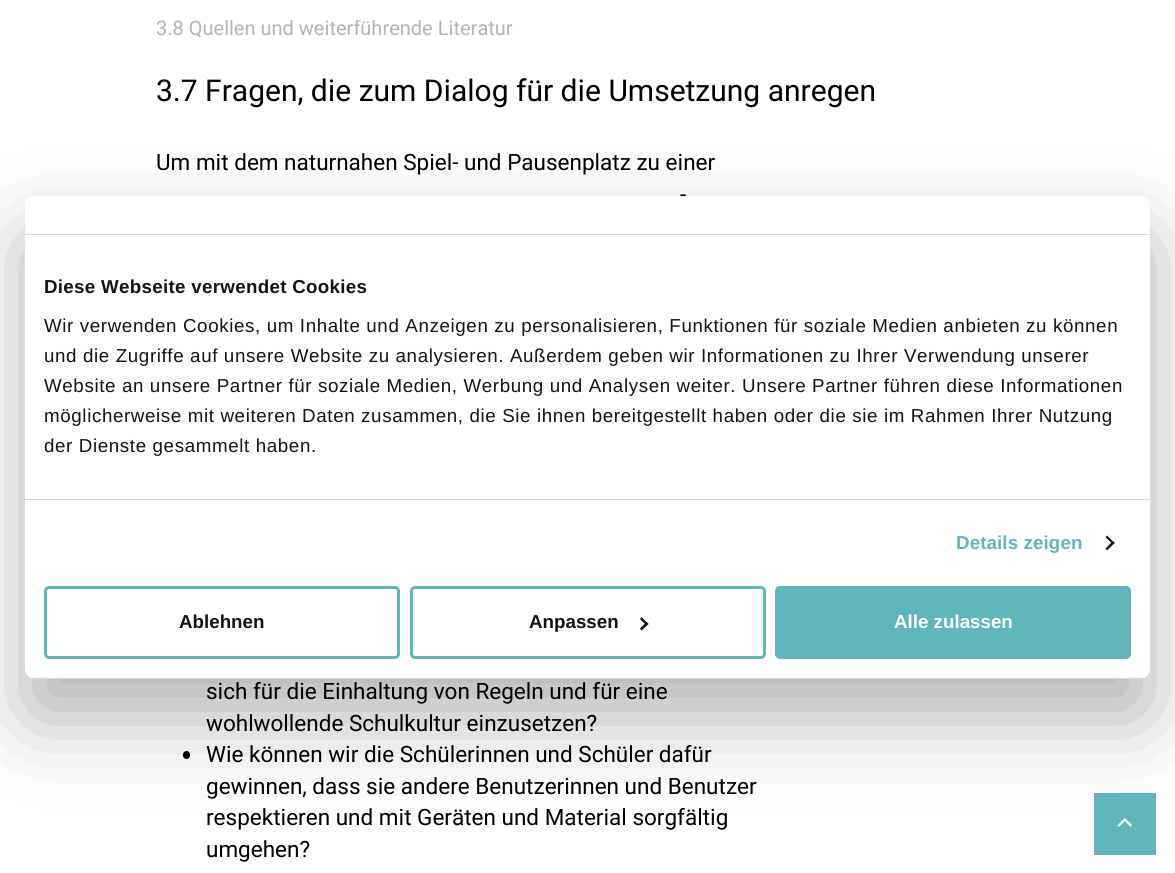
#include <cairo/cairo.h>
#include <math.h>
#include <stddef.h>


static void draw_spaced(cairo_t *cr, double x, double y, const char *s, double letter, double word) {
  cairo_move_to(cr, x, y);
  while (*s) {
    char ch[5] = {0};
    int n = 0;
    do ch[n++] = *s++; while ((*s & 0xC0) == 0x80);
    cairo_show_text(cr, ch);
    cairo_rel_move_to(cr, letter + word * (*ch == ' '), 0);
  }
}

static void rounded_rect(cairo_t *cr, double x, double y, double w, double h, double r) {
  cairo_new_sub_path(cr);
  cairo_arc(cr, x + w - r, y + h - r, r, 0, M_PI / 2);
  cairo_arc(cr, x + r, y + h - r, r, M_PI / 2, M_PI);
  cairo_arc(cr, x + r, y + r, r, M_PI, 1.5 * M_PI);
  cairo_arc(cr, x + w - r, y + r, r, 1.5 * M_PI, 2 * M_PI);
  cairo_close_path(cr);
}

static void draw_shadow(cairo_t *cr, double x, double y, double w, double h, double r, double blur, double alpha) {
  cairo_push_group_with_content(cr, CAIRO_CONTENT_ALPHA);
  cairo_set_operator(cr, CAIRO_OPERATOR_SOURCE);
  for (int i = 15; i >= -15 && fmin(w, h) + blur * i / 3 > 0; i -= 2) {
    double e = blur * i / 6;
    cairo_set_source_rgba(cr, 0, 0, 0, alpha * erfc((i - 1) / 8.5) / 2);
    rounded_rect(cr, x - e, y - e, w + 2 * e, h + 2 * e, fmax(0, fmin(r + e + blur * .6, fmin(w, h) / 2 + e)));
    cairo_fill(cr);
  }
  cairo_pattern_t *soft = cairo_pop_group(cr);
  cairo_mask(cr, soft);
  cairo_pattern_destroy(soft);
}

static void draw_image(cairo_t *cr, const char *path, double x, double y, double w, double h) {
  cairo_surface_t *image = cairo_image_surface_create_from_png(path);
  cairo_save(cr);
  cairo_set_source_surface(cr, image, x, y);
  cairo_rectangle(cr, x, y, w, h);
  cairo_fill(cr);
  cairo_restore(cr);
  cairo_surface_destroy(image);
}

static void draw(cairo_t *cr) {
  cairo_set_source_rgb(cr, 1, 1, 1);
  cairo_paint(cr);
  cairo_set_source_rgb(cr, 0, 0, 0);
  rounded_rect(cr, 183, 751, 7, 8, 3.5);
  cairo_fill(cr);
  cairo_set_source_rgb(cr, 96 / 255.0, 182 / 255.0, 186 / 255.0);
  cairo_rectangle(cr, 1094, 793, 62, 62);
  cairo_fill(cr);
  draw_image(cr, "images/1.png", 1117, 818, 15, 9);
  cairo_set_source_rgb(cr, 0, 0, 0);
  draw_shadow(cr, 25, 236, 1125, 483, 10, 42.5, 0.3);
  cairo_select_font_face(cr, "Heebo", CAIRO_FONT_SLANT_NORMAL, CAIRO_FONT_WEIGHT_NORMAL);
  cairo_set_font_size(cr, 20);
  cairo_set_source_rgb(cr, 180 / 255.0, 180 / 255.0, 180 / 255.0);
  cairo_move_to(cr, 156, 35);
  cairo_show_text(cr, "3.8 Quellen und weiterführende Literatur");
  cairo_set_font_size(cr, 30);
  cairo_set_source_rgb(cr, 0, 0, 0);
  cairo_move_to(cr, 156, 101);
  cairo_show_text(cr, "3.7 Fragen, die zum Dialog für die Umsetzung anregen");
  cairo_set_font_size(cr, 22.5);
  cairo_move_to(cr, 156, 170);
  cairo_show_text(cr, "Um mit dem naturnahen Spiel- und Pausenplatz zu einer");
  cairo_move_to(cr, 680, 202);
  cairo_show_text(cr, "-");
  cairo_move_to(cr, 206, 699);
  cairo_show_text(cr, "sich für die Einhaltung von Regeln und für eine");
  cairo_move_to(cr, 206, 731);
  cairo_show_text(cr, "wohlwollende Schulkultur einzusetzen?");
  cairo_move_to(cr, 206, 762);
  cairo_show_text(cr, "Wie können wir die Schülerinnen und Schüler dafür");
  cairo_move_to(cr, 206, 794);
  cairo_show_text(cr, "gewinnen, dass sie andere Benutzerinnen und Benutzer");
  cairo_move_to(cr, 206, 825);
  cairo_show_text(cr, "respektieren und mit Geräten und Material sorgfältig");
  cairo_move_to(cr, 206, 857);
  cairo_show_text(cr, "umgehen?");
  cairo_set_source_rgb(cr, 1, 1, 1);
  rounded_rect(cr, 25, 196, 1125, 483, 10);
  cairo_fill(cr);
  cairo_set_source_rgb(cr, 214 / 255.0, 214 / 255.0, 214 / 255.0);
  cairo_rectangle(cr, 25, 234, 1125, 1);
  cairo_fill(cr);
  cairo_rectangle(cr, 25, 499, 1125, 1);
  cairo_fill(cr);
  cairo_select_font_face(cr, "Liberation Sans", CAIRO_FONT_SLANT_NORMAL, CAIRO_FONT_WEIGHT_BOLD);
  cairo_set_font_size(cr, 18.75);
  cairo_set_source_rgb(cr, 20 / 255.0, 20 / 255.0, 20 / 255.0);
  draw_spaced(cr, 44, 293, "Diese Webseite verwendet Cookies", 0.3, 0);
  cairo_select_font_face(cr, "Liberation Sans", CAIRO_FONT_SLANT_NORMAL, CAIRO_FONT_WEIGHT_NORMAL);
  draw_spaced(cr, 44, 332, "Wir verwenden Cookies, um Inhalte und Anzeigen zu personalisieren, Funktionen für soziale Medien anbieten zu können", 0.62, 0);
  draw_spaced(cr, 44, 362, "und die Zugriffe auf unsere Website zu analysieren. Außerdem geben wir Informationen zu Ihrer Verwendung unserer", 0.62, 0);
  draw_spaced(cr, 44, 392, "Website an unsere Partner für soziale Medien, Werbung und Analysen weiter. Unsere Partner führen diese Informationen", 0.62, 0);
  draw_spaced(cr, 44, 422, "möglicherweise mit weiteren Daten zusammen, die Sie ihnen bereitgestellt haben oder die sie im Rahmen Ihrer Nutzung", 0.62, 0);
  draw_spaced(cr, 44, 452, "der Dienste gesammelt haben.", 0.62, 0);
  cairo_select_font_face(cr, "Liberation Sans", CAIRO_FONT_SLANT_NORMAL, CAIRO_FONT_WEIGHT_BOLD);
  cairo_set_source_rgb(cr, 96 / 255.0, 182 / 255.0, 186 / 255.0);
  draw_spaced(cr, 956, 549, "Details zeigen", 0.1, 0);
  cairo_set_source_rgb(cr, 20 / 255.0, 20 / 255.0, 20 / 255.0);
  cairo_new_path(cr);
  cairo_move_to(cr, 1107, 535.5);
  cairo_line_to(cr, 1114.5, 543);
  cairo_line_to(cr, 1113, 544.5);
  cairo_line_to(cr, 1105.5, 537);
  cairo_close_path(cr);
  cairo_fill(cr);
  cairo_new_path(cr);
  cairo_move_to(cr, 1113, 541);
  cairo_line_to(cr, 1114.5, 543);
  cairo_line_to(cr, 1107, 550.5);
  cairo_line_to(cr, 1105.5, 548.5);
  cairo_close_path(cr);
  cairo_fill(cr);
  cairo_save(cr);
  rounded_rect(cr, 25, 196, 1125, 483, 10);
  cairo_clip(cr);
  cairo_set_source_rgb(cr, 214 / 255.0, 214 / 255.0, 214 / 255.0);
  cairo_rectangle(cr, 25, 678, 1125, 1);
  cairo_fill(cr);
  cairo_restore(cr);
  rounded_rect(cr, 45.5, 587.5, 353, 70, 3.5);
  cairo_set_source_rgb(cr, 96 / 255.0, 182 / 255.0, 186 / 255.0);
  cairo_set_line_width(cr, 3);
  cairo_stroke(cr);
  cairo_set_source_rgb(cr, 20 / 255.0, 20 / 255.0, 20 / 255.0);
  cairo_move_to(cr, 179, 628);
  cairo_show_text(cr, "Ablehnen");
  rounded_rect(cr, 411.5, 587.5, 353, 70, 3.5);
  cairo_set_source_rgb(cr, 96 / 255.0, 182 / 255.0, 186 / 255.0);
  cairo_stroke(cr);
  cairo_set_source_rgb(cr, 20 / 255.0, 20 / 255.0, 20 / 255.0);
  cairo_move_to(cr, 529, 628);
  cairo_show_text(cr, "Anpassen");
  cairo_new_path(cr);
  cairo_move_to(cr, 641.5, 617);
  cairo_line_to(cr, 648.5, 624);
  cairo_line_to(cr, 646.5, 625.5);
  cairo_line_to(cr, 640, 619);
  cairo_close_path(cr);
  cairo_fill(cr);
  cairo_new_path(cr);
  cairo_move_to(cr, 646.5, 622);
  cairo_line_to(cr, 648.5, 624);
  cairo_line_to(cr, 641.5, 630.5);
  cairo_line_to(cr, 640, 628.5);
  cairo_close_path(cr);
  cairo_fill(cr);
  cairo_set_source_rgb(cr, 96 / 255.0, 182 / 255.0, 186 / 255.0);
  rounded_rect(cr, 776.5, 587.5, 353, 70, 3.5);
  cairo_fill_preserve(cr);
  cairo_stroke(cr);
  cairo_set_source_rgb(cr, 1, 1, 1);
  cairo_move_to(cr, 894, 628);
  cairo_show_text(cr, "Alle zulassen");
}

int main(void) {
  cairo_surface_t *surface = cairo_image_surface_create(CAIRO_FORMAT_RGB24, 1175, 873);
  cairo_t *cr = cairo_create(surface);
  cairo_font_options_t *options = cairo_font_options_create();
  cairo_font_options_set_hint_metrics(options, CAIRO_HINT_METRICS_OFF);
  cairo_font_options_set_hint_style(options, CAIRO_HINT_STYLE_NONE);
  cairo_set_font_options(cr, options);
  cairo_set_miter_limit(cr, 4);
  draw(cr);
  cairo_surface_write_to_png(surface, "out.png");
  cairo_font_options_destroy(options);
  cairo_destroy(cr);
  cairo_surface_destroy(surface);
  return 0;
}
